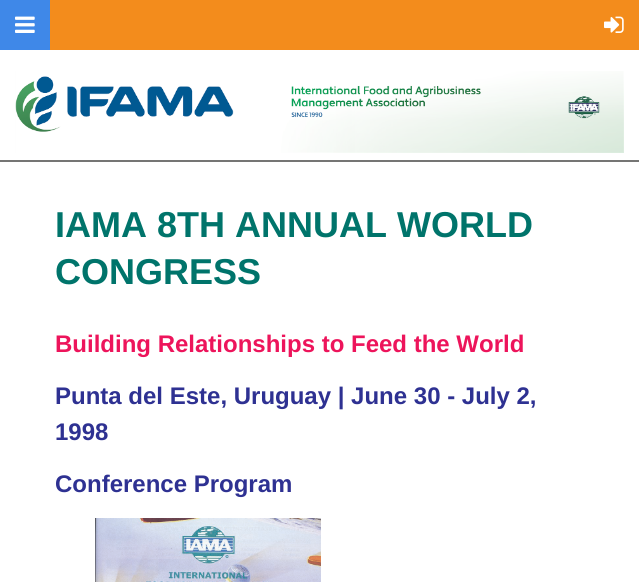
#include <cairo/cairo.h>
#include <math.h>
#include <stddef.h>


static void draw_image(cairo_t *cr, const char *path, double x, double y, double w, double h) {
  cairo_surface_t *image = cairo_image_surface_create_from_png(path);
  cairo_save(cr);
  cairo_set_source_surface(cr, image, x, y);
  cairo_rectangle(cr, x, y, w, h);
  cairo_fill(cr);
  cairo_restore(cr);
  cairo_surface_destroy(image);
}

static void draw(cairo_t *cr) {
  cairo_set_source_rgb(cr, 1, 1, 1);
  cairo_paint(cr);
  cairo_set_source_rgb(cr, 243 / 255.0, 140 / 255.0, 28 / 255.0);
  cairo_rectangle(cr, 50, 0, 589, 50);
  cairo_fill(cr);
  cairo_set_source_rgb(cr, 63 / 255.0, 136 / 255.0, 232 / 255.0);
  cairo_rectangle(cr, 0, 0, 50, 50);
  cairo_fill(cr);
  draw_image(cr, "images/1.png", 15, 16, 20, 17);
  draw_image(cr, "images/2.png", 604, 16, 20, 17);
  draw_image(cr, "images/3.png", 15, 71, 609, 82);
  cairo_set_source_rgb(cr, 117 / 255.0, 117 / 255.0, 116 / 255.0);
  cairo_rectangle(cr, 0, 160, 639, 2);
  cairo_fill(cr);
  draw_image(cr, "images/4.png", 95, 518, 226, 64);
  cairo_select_font_face(cr, "Liberation Sans", CAIRO_FONT_SLANT_NORMAL, CAIRO_FONT_WEIGHT_BOLD);
  cairo_set_font_size(cr, 36);
  cairo_set_source_rgb(cr, 0, 116 / 255.0, 107 / 255.0);
  cairo_move_to(cr, 55, 237);
  cairo_show_text(cr, "IAMA 8TH ANNUAL WORLD");
  cairo_move_to(cr, 55, 284);
  cairo_show_text(cr, "CONGRESS");
  cairo_set_font_size(cr, 24);
  cairo_set_source_rgb(cr, 237 / 255.0, 20 / 255.0, 91 / 255.0);
  cairo_move_to(cr, 55, 352);
  cairo_show_text(cr, "Building Relationships to Feed the World");
  cairo_set_source_rgb(cr, 46 / 255.0, 49 / 255.0, 146 / 255.0);
  cairo_move_to(cr, 55, 404);
  cairo_show_text(cr, "Punta del Este, Uruguay | June 30 - July 2,");
  cairo_move_to(cr, 55, 440);
  cairo_show_text(cr, "1998");
  cairo_move_to(cr, 55, 492);
  cairo_show_text(cr, "Conference Program");
}

int main(void) {
  cairo_surface_t *surface = cairo_image_surface_create(CAIRO_FORMAT_RGB24, 639, 582);
  cairo_t *cr = cairo_create(surface);
  cairo_font_options_t *options = cairo_font_options_create();
  cairo_font_options_set_hint_metrics(options, CAIRO_HINT_METRICS_OFF);
  cairo_font_options_set_hint_style(options, CAIRO_HINT_STYLE_NONE);
  cairo_set_font_options(cr, options);
  cairo_set_miter_limit(cr, 4);
  draw(cr);
  cairo_surface_write_to_png(surface, "out.png");
  cairo_font_options_destroy(options);
  cairo_destroy(cr);
  cairo_surface_destroy(surface);
  return 0;
}
